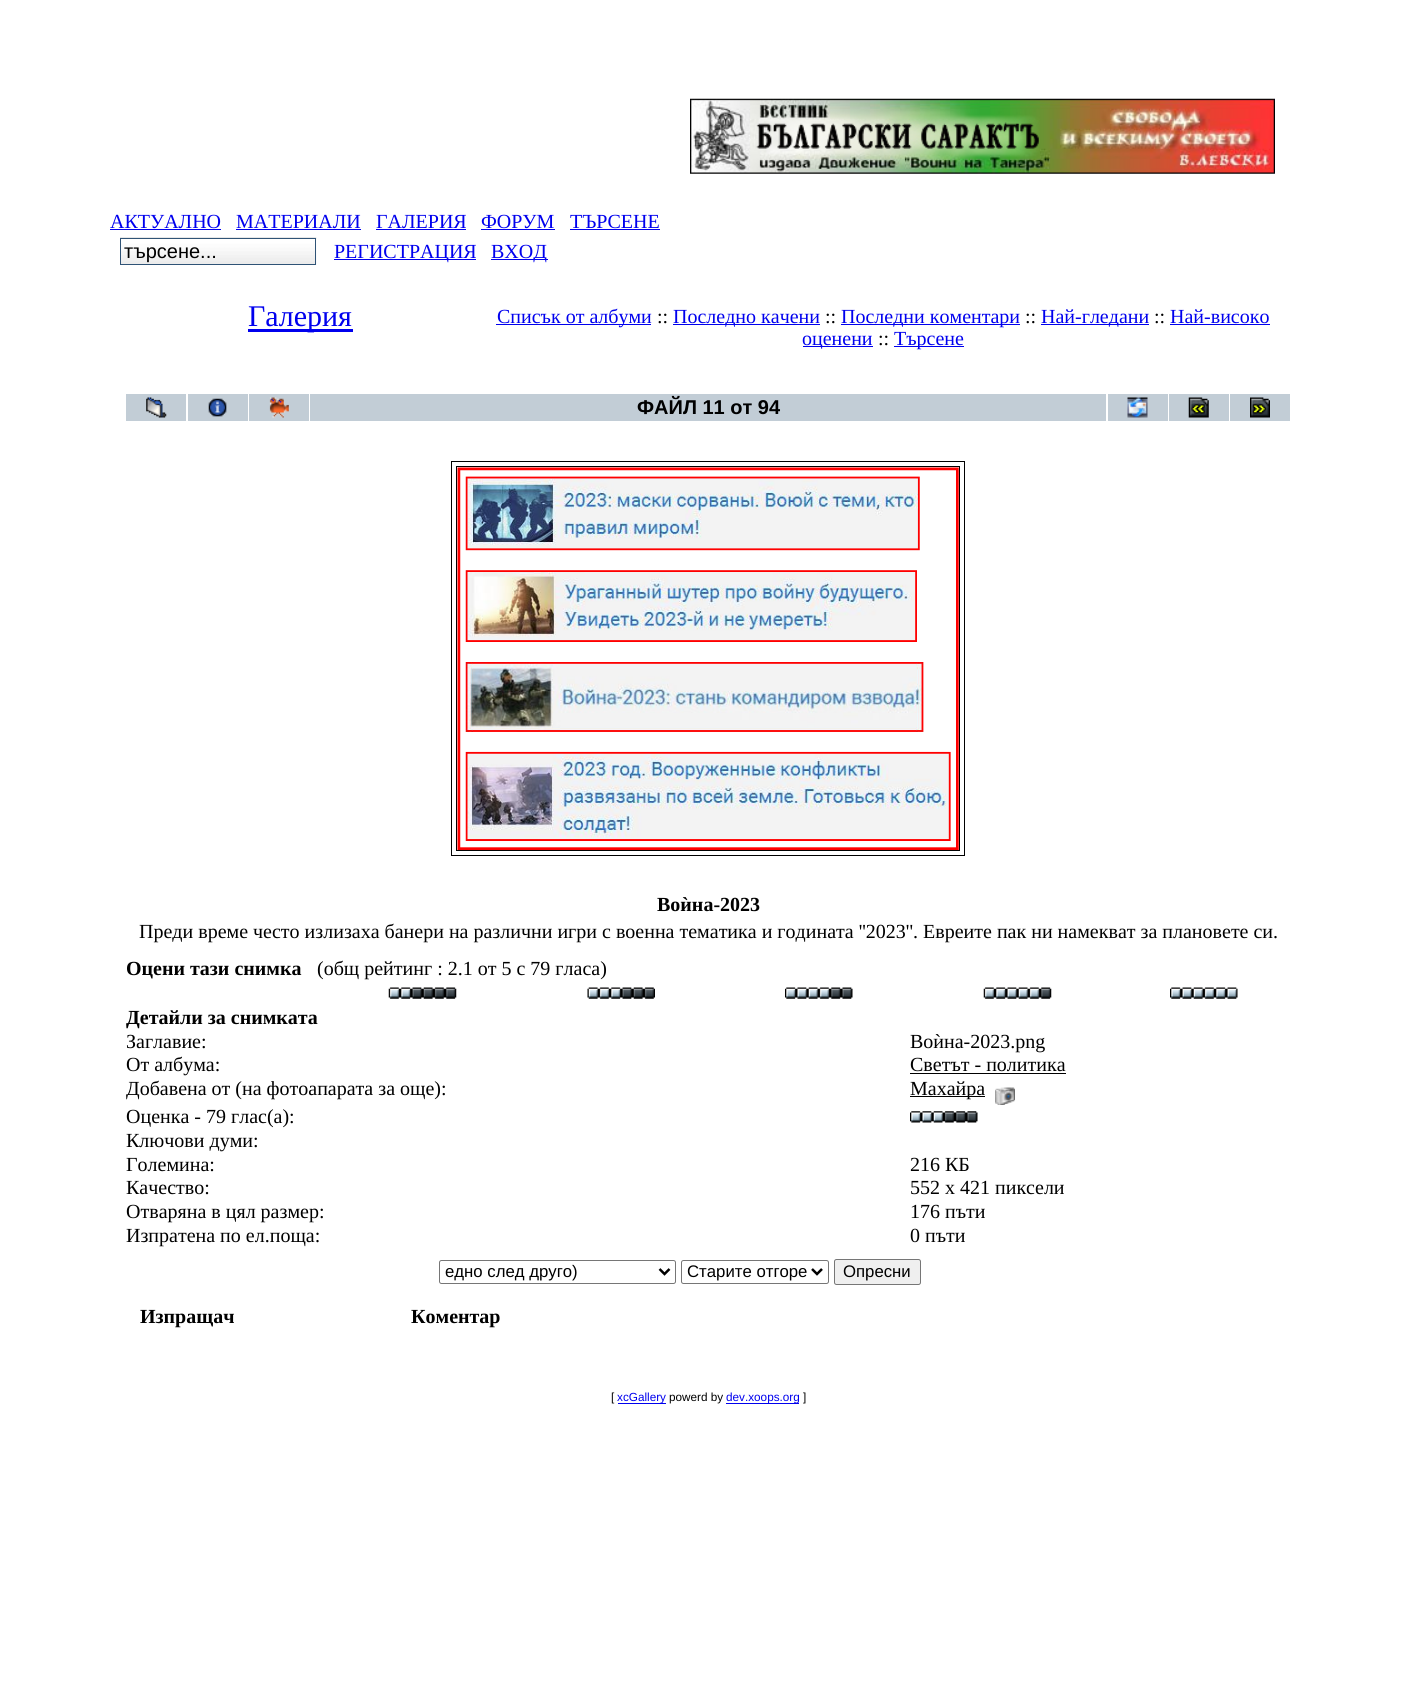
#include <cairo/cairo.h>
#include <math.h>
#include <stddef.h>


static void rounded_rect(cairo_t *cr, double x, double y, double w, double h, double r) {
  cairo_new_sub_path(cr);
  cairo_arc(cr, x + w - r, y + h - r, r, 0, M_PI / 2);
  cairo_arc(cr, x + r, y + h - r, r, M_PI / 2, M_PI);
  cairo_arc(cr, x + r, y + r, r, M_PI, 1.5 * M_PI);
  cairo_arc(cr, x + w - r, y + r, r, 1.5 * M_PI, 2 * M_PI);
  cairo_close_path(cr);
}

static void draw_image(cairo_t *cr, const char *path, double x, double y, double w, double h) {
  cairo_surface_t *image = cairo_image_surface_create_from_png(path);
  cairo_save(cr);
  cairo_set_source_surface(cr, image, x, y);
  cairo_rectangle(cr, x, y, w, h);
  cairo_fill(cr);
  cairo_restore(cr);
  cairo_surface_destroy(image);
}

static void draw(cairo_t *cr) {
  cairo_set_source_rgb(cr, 1, 1, 1);
  cairo_paint(cr);
  draw_image(cr, "images/1.png", 690, 98, 585, 76);
  cairo_set_source_rgb(cr, 0, 0, 238 / 255.0);
  cairo_rectangle(cr, 110, 229, 111, 1);
  cairo_fill(cr);
  cairo_rectangle(cr, 236, 229, 125, 1);
  cairo_fill(cr);
  cairo_rectangle(cr, 376, 229, 90, 1);
  cairo_fill(cr);
  cairo_rectangle(cr, 481, 229, 74, 1);
  cairo_fill(cr);
  cairo_rectangle(cr, 570, 229, 90, 1);
  cairo_fill(cr);
  draw_image(cr, "images/2.png", 120, 237, 197, 28);
  cairo_rectangle(cr, 120.5, 238.5, 195, 26);
  cairo_set_source_rgb(cr, 47 / 255.0, 83 / 255.0, 118 / 255.0);
  cairo_set_line_width(cr, 1);
  cairo_stroke(cr);
  cairo_set_source_rgb(cr, 0, 0, 238 / 255.0);
  cairo_rectangle(cr, 334, 259, 142, 1);
  cairo_fill(cr);
  cairo_rectangle(cr, 491, 259, 57, 1);
  cairo_fill(cr);
  cairo_rectangle(cr, 248, 329, 105, 3);
  cairo_fill(cr);
  cairo_rectangle(cr, 496, 324, 155, 1);
  cairo_fill(cr);
  cairo_rectangle(cr, 673, 324, 147, 1);
  cairo_fill(cr);
  cairo_rectangle(cr, 841, 324, 179, 1);
  cairo_fill(cr);
  cairo_rectangle(cr, 1041, 324, 108, 1);
  cairo_fill(cr);
  cairo_rectangle(cr, 1170, 324, 100, 1);
  cairo_fill(cr);
  cairo_rectangle(cr, 803, 346, 70, 1);
  cairo_fill(cr);
  cairo_rectangle(cr, 894, 346, 70, 1);
  cairo_fill(cr);
  cairo_set_source_rgb(cr, 194 / 255.0, 205 / 255.0, 214 / 255.0);
  cairo_rectangle(cr, 126, 394, 60, 27);
  cairo_fill(cr);
  draw_image(cr, "images/3.png", 146, 397, 21, 21);
  cairo_rectangle(cr, 188, 394, 60, 27);
  cairo_fill(cr);
  draw_image(cr, "images/4.png", 208, 398, 19, 19);
  cairo_rectangle(cr, 249, 394, 60, 27);
  cairo_fill(cr);
  draw_image(cr, "images/5.png", 269, 397, 20, 21);
  cairo_rectangle(cr, 310, 394, 796, 27);
  cairo_fill(cr);
  cairo_rectangle(cr, 1108, 394, 60, 27);
  cairo_fill(cr);
  draw_image(cr, "images/6.png", 1127, 397, 21, 21);
  cairo_rectangle(cr, 1169, 394, 60, 27);
  cairo_fill(cr);
  draw_image(cr, "images/7.png", 1188, 397, 21, 21);
  cairo_rectangle(cr, 1230, 394, 60, 27);
  cairo_fill(cr);
  draw_image(cr, "images/8.png", 1250, 397, 20, 21);
  cairo_rectangle(cr, 451.5, 461.5, 513, 394);
  cairo_set_source_rgb(cr, 0, 0, 0);
  cairo_stroke(cr);
  cairo_rectangle(cr, 456.5, 466.5, 503, 384);
  cairo_stroke(cr);
  draw_image(cr, "images/9.png", 457, 467, 502, 383);
  draw_image(cr, "images/10.png", 388, 987, 69, 12);
  draw_image(cr, "images/11.png", 587, 987, 68, 12);
  draw_image(cr, "images/12.png", 785, 987, 68, 12);
  draw_image(cr, "images/13.png", 983, 987, 69, 12);
  draw_image(cr, "images/14.png", 1170, 987, 68, 12);
  cairo_rectangle(cr, 910, 1073, 156, 1);
  cairo_fill(cr);
  cairo_rectangle(cr, 910, 1096, 75, 1);
  cairo_fill(cr);
  draw_image(cr, "images/15.png", 995, 1087, 20, 18);
  draw_image(cr, "images/16.png", 910, 1111, 68, 12);
  rounded_rect(cr, 439.5, 1260.5, 236, 23, 2);
  cairo_set_source_rgb(cr, 118 / 255.0, 118 / 255.0, 118 / 255.0);
  cairo_stroke(cr);
  cairo_new_path(cr);
  cairo_move_to(cr, 659.5, 1269);
  cairo_line_to(cr, 664.5, 1274);
  cairo_line_to(cr, 669.5, 1269);
  cairo_set_source_rgb(cr, 0, 0, 0);
  cairo_set_line_width(cr, 2.5);
  cairo_stroke(cr);
  rounded_rect(cr, 681.5, 1260.5, 147, 23, 2);
  cairo_set_source_rgb(cr, 118 / 255.0, 118 / 255.0, 118 / 255.0);
  cairo_set_line_width(cr, 1);
  cairo_stroke(cr);
  cairo_new_path(cr);
  cairo_move_to(cr, 812, 1269);
  cairo_line_to(cr, 817, 1274);
  cairo_line_to(cr, 822, 1269);
  cairo_set_source_rgb(cr, 0, 0, 0);
  cairo_set_line_width(cr, 2.5);
  cairo_stroke(cr);
  cairo_set_source_rgb(cr, 239 / 255.0, 239 / 255.0, 239 / 255.0);
  rounded_rect(cr, 834.5, 1259.5, 86, 25, 2);
  cairo_fill_preserve(cr);
  cairo_set_source_rgb(cr, 118 / 255.0, 118 / 255.0, 118 / 255.0);
  cairo_set_line_width(cr, 1);
  cairo_stroke(cr);
  cairo_set_source_rgb(cr, 0, 0, 238 / 255.0);
  cairo_rectangle(cr, 618, 1403, 48, 1);
  cairo_fill(cr);
  cairo_rectangle(cr, 726, 1403, 73, 1);
  cairo_fill(cr);
  cairo_select_font_face(cr, "Liberation Serif", CAIRO_FONT_SLANT_NORMAL, CAIRO_FONT_WEIGHT_NORMAL);
  cairo_set_font_size(cr, 20);
  cairo_move_to(cr, 110, 228);
  cairo_show_text(cr, "АКТУАЛНО");
  cairo_move_to(cr, 236, 228);
  cairo_show_text(cr, "МАТЕРИАЛИ");
  cairo_move_to(cr, 376, 228);
  cairo_show_text(cr, "ГАЛЕРИЯ");
  cairo_move_to(cr, 481, 228);
  cairo_show_text(cr, "ФОРУМ");
  cairo_move_to(cr, 570, 228);
  cairo_show_text(cr, "ТЪРСЕНЕ");
  cairo_select_font_face(cr, "Liberation Sans", CAIRO_FONT_SLANT_NORMAL, CAIRO_FONT_WEIGHT_NORMAL);
  cairo_set_source_rgb(cr, 0, 0, 0);
  cairo_move_to(cr, 124, 258);
  cairo_show_text(cr, "търсене...");
  cairo_select_font_face(cr, "Liberation Serif", CAIRO_FONT_SLANT_NORMAL, CAIRO_FONT_WEIGHT_NORMAL);
  cairo_set_source_rgb(cr, 0, 0, 238 / 255.0);
  cairo_move_to(cr, 334, 258);
  cairo_show_text(cr, "РЕГИСТРАЦИЯ");
  cairo_move_to(cr, 491, 258);
  cairo_show_text(cr, "ВХОД");
  cairo_set_font_size(cr, 30);
  cairo_move_to(cr, 248, 326);
  cairo_show_text(cr, "Галерия");
  cairo_set_font_size(cr, 20);
  cairo_move_to(cr, 497, 323);
  cairo_show_text(cr, "Списък от албуми");
  cairo_set_source_rgb(cr, 0, 0, 0);
  cairo_move_to(cr, 657, 323);
  cairo_show_text(cr, "::");
  cairo_set_source_rgb(cr, 0, 0, 238 / 255.0);
  cairo_move_to(cr, 673, 323);
  cairo_show_text(cr, "Последно качени");
  cairo_set_source_rgb(cr, 0, 0, 0);
  cairo_move_to(cr, 825, 323);
  cairo_show_text(cr, "::");
  cairo_set_source_rgb(cr, 0, 0, 238 / 255.0);
  cairo_move_to(cr, 841, 323);
  cairo_show_text(cr, "Последни коментари");
  cairo_set_source_rgb(cr, 0, 0, 0);
  cairo_move_to(cr, 1025, 323);
  cairo_show_text(cr, "::");
  cairo_set_source_rgb(cr, 0, 0, 238 / 255.0);
  cairo_move_to(cr, 1041, 323);
  cairo_show_text(cr, "Най-гледани");
  cairo_set_source_rgb(cr, 0, 0, 0);
  cairo_move_to(cr, 1154, 323);
  cairo_show_text(cr, "::");
  cairo_set_source_rgb(cr, 0, 0, 238 / 255.0);
  cairo_move_to(cr, 1170, 323);
  cairo_show_text(cr, "Най-високо");
  cairo_move_to(cr, 802, 345);
  cairo_show_text(cr, "оценени");
  cairo_set_source_rgb(cr, 0, 0, 0);
  cairo_move_to(cr, 878, 345);
  cairo_show_text(cr, "::");
  cairo_set_source_rgb(cr, 0, 0, 238 / 255.0);
  cairo_move_to(cr, 894, 345);
  cairo_show_text(cr, "Търсене");
  cairo_select_font_face(cr, "Liberation Sans", CAIRO_FONT_SLANT_NORMAL, CAIRO_FONT_WEIGHT_BOLD);
  cairo_set_source_rgb(cr, 0, 0, 0);
  cairo_move_to(cr, 637, 414);
  cairo_show_text(cr, "ФАЙЛ 11 от 94");
  cairo_select_font_face(cr, "Liberation Serif", CAIRO_FONT_SLANT_NORMAL, CAIRO_FONT_WEIGHT_BOLD);
  cairo_move_to(cr, 657, 911);
  cairo_show_text(cr, "Воѝна-2023");
  cairo_select_font_face(cr, "Liberation Serif", CAIRO_FONT_SLANT_NORMAL, CAIRO_FONT_WEIGHT_NORMAL);
  cairo_move_to(cr, 139, 938);
  cairo_show_text(cr, "Преди време често излизаха банери на различни игри с военна тематика и годината ''2023''. Евреите пак ни намекват за плановете си.");
  cairo_select_font_face(cr, "Liberation Serif", CAIRO_FONT_SLANT_NORMAL, CAIRO_FONT_WEIGHT_BOLD);
  cairo_move_to(cr, 126, 975);
  cairo_show_text(cr, "Оцени тази снимка");
  cairo_select_font_face(cr, "Liberation Serif", CAIRO_FONT_SLANT_NORMAL, CAIRO_FONT_WEIGHT_NORMAL);
  cairo_move_to(cr, 317, 975);
  cairo_show_text(cr, "(общ рейтинг : 2.1 от 5 с 79 гласа)");
  cairo_select_font_face(cr, "Liberation Serif", CAIRO_FONT_SLANT_NORMAL, CAIRO_FONT_WEIGHT_BOLD);
  cairo_move_to(cr, 126, 1024);
  cairo_show_text(cr, "Детайли за снимката");
  cairo_select_font_face(cr, "Liberation Serif", CAIRO_FONT_SLANT_NORMAL, CAIRO_FONT_WEIGHT_NORMAL);
  cairo_move_to(cr, 126, 1048);
  cairo_show_text(cr, "Заглавие:");
  cairo_move_to(cr, 910, 1048);
  cairo_show_text(cr, "Воѝна-2023.png");
  cairo_move_to(cr, 126, 1071);
  cairo_show_text(cr, "От албума:");
  cairo_move_to(cr, 910, 1071);
  cairo_show_text(cr, "Светът - политика");
  cairo_move_to(cr, 126, 1095);
  cairo_show_text(cr, "Добавена от (на фотоапарата за още):");
  cairo_move_to(cr, 910, 1095);
  cairo_show_text(cr, "Махайра");
  cairo_move_to(cr, 126, 1123);
  cairo_show_text(cr, "Оценка - 79 глас(а):");
  cairo_move_to(cr, 126, 1147);
  cairo_show_text(cr, "Ключови думи:");
  cairo_move_to(cr, 126, 1171);
  cairo_show_text(cr, "Големина:");
  cairo_move_to(cr, 910, 1171);
  cairo_show_text(cr, "216 КБ");
  cairo_move_to(cr, 126, 1194);
  cairo_show_text(cr, "Качество:");
  cairo_move_to(cr, 910, 1194);
  cairo_show_text(cr, "552 x 421 пиксели");
  cairo_move_to(cr, 126, 1218);
  cairo_show_text(cr, "Отваряна в цял размер:");
  cairo_move_to(cr, 910, 1218);
  cairo_show_text(cr, "176 пъти");
  cairo_move_to(cr, 126, 1242);
  cairo_show_text(cr, "Изпратена по ел.поща:");
  cairo_move_to(cr, 910, 1242);
  cairo_show_text(cr, "0 пъти");
  cairo_select_font_face(cr, "Liberation Sans", CAIRO_FONT_SLANT_NORMAL, CAIRO_FONT_WEIGHT_NORMAL);
  cairo_set_font_size(cr, 16.75);
  cairo_move_to(cr, 445, 1277);
  cairo_show_text(cr, "едно след друго)");
  cairo_move_to(cr, 687, 1277);
  cairo_show_text(cr, "Старите отгоре");
  cairo_move_to(cr, 843, 1277);
  cairo_show_text(cr, "Опресни");
  cairo_select_font_face(cr, "Liberation Serif", CAIRO_FONT_SLANT_NORMAL, CAIRO_FONT_WEIGHT_BOLD);
  cairo_set_font_size(cr, 20);
  cairo_move_to(cr, 140, 1323);
  cairo_show_text(cr, "Изпращач");
  cairo_move_to(cr, 411, 1323);
  cairo_show_text(cr, "Коментар");
  cairo_select_font_face(cr, "Liberation Sans", CAIRO_FONT_SLANT_NORMAL, CAIRO_FONT_WEIGHT_NORMAL);
  cairo_set_font_size(cr, 11.75);
  cairo_move_to(cr, 611, 1401);
  cairo_show_text(cr, "[");
  cairo_set_source_rgb(cr, 0, 0, 238 / 255.0);
  cairo_move_to(cr, 617, 1401);
  cairo_show_text(cr, "xcGallery");
  cairo_set_source_rgb(cr, 0, 0, 0);
  cairo_move_to(cr, 669, 1401);
  cairo_show_text(cr, "powerd by");
  cairo_set_source_rgb(cr, 0, 0, 238 / 255.0);
  cairo_move_to(cr, 726, 1401);
  cairo_show_text(cr, "dev.xoops.org");
  cairo_set_source_rgb(cr, 0, 0, 0);
  cairo_move_to(cr, 803, 1401);
  cairo_show_text(cr, "]");
}

int main(void) {
  cairo_surface_t *surface = cairo_image_surface_create(CAIRO_FORMAT_RGB24, 1416, 1696);
  cairo_t *cr = cairo_create(surface);
  cairo_font_options_t *options = cairo_font_options_create();
  cairo_font_options_set_hint_metrics(options, CAIRO_HINT_METRICS_OFF);
  cairo_font_options_set_hint_style(options, CAIRO_HINT_STYLE_NONE);
  cairo_set_font_options(cr, options);
  cairo_set_miter_limit(cr, 4);
  draw(cr);
  cairo_surface_write_to_png(surface, "out.png");
  cairo_font_options_destroy(options);
  cairo_destroy(cr);
  cairo_surface_destroy(surface);
  return 0;
}
